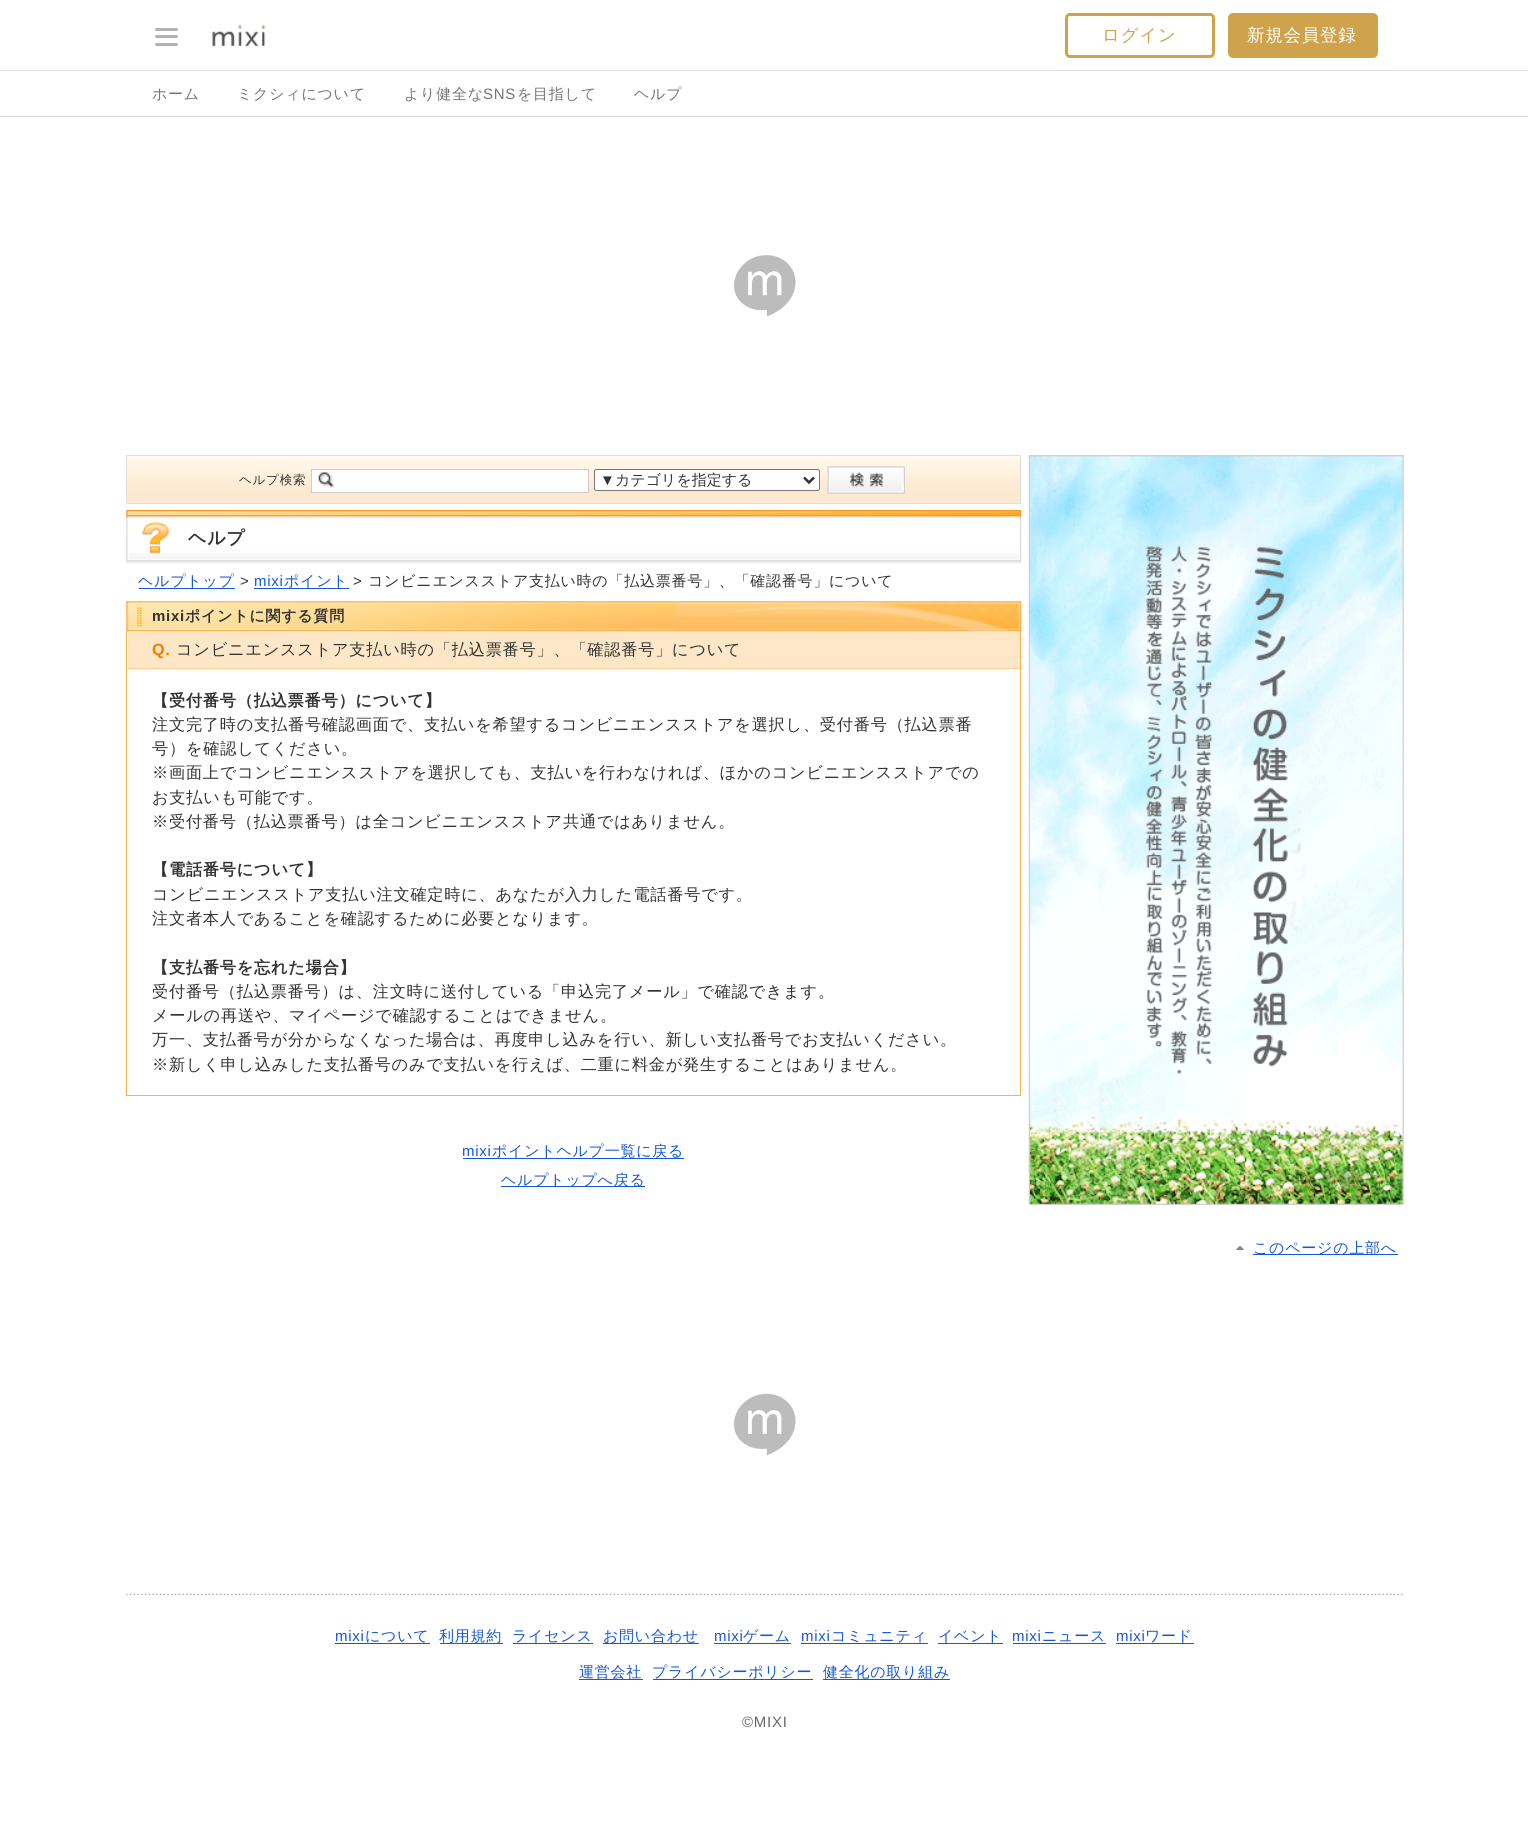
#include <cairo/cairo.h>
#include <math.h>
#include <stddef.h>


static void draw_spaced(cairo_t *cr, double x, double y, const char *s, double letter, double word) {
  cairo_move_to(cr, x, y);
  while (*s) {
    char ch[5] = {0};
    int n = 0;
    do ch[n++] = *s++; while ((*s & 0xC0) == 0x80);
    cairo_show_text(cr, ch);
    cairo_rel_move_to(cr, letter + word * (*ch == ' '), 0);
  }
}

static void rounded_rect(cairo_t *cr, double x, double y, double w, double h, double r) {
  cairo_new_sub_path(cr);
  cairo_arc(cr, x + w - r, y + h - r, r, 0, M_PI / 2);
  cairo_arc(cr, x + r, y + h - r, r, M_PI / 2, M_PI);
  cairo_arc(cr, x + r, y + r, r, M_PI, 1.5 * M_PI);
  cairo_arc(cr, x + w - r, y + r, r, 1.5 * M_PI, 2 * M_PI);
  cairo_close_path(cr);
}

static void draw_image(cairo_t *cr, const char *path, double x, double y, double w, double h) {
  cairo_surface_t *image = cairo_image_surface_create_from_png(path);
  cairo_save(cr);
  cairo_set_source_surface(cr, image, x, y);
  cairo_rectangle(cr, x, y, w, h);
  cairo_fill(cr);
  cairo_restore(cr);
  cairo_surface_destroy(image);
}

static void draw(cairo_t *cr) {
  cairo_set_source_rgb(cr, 1, 1, 1);
  cairo_paint(cr);
  cairo_set_source_rgb(cr, 225 / 255.0, 225 / 255.0, 225 / 255.0);
  cairo_rectangle(cr, 0, 70, 1528, 1);
  cairo_fill(cr);
  cairo_set_source_rgb(cr, 178 / 255.0, 178 / 255.0, 178 / 255.0);
  rounded_rect(cr, 155, 28, 23, 3, 1.5);
  cairo_fill(cr);
  rounded_rect(cr, 155, 35, 23, 3, 1.5);
  cairo_fill(cr);
  rounded_rect(cr, 155, 43, 23, 3, 1.5);
  cairo_fill(cr);
  draw_image(cr, "images/1.png", 212, 24, 54, 23);
  rounded_rect(cr, 1066.5, 14.5, 147, 42, 3.5);
  cairo_set_source_rgb(cr, 207 / 255.0, 163 / 255.0, 76 / 255.0);
  cairo_set_line_width(cr, 3);
  cairo_stroke(cr);
  rounded_rect(cr, 1229.5, 14.5, 147, 42, 3.5);
  cairo_fill_preserve(cr);
  cairo_stroke(cr);
  cairo_set_source_rgb(cr, 217 / 255.0, 217 / 255.0, 217 / 255.0);
  cairo_rectangle(cr, 0, 116, 1528, 1);
  cairo_fill(cr);
  draw_image(cr, "images/2.png", 733, 255, 63, 62);
  cairo_set_source_rgb(cr, 251 / 255.0, 233 / 255.0, 208 / 255.0);
  cairo_rectangle(cr, 127, 456, 893, 47);
  cairo_fill(cr);
  draw_image(cr, "images/3.png", 127, 456, 895, 38);
  cairo_rectangle(cr, 126.5, 455.5, 894, 48);
  cairo_set_source_rgb(cr, 223 / 255.0, 223 / 255.0, 223 / 255.0);
  cairo_set_line_width(cr, 1);
  cairo_stroke(cr);
  cairo_set_source_rgb(cr, 1, 1, 1);
  cairo_rectangle(cr, 312, 470, 276, 22);
  cairo_fill(cr);
  draw_image(cr, "images/4.png", 318, 472, 16, 16);
  cairo_rectangle(cr, 311.5, 469.5, 277, 23);
  cairo_set_source_rgb(cr, 204 / 255.0, 204 / 255.0, 204 / 255.0);
  cairo_stroke(cr);
  cairo_set_source_rgb(cr, 1, 1, 1);
  rounded_rect(cr, 594.5, 469.5, 225, 21, 2);
  cairo_fill_preserve(cr);
  cairo_set_source_rgb(cr, 118 / 255.0, 118 / 255.0, 118 / 255.0);
  cairo_stroke(cr);
  cairo_new_path(cr);
  cairo_move_to(cr, 804, 477.5);
  cairo_line_to(cr, 809, 482.5);
  cairo_line_to(cr, 814, 477.5);
  cairo_set_source_rgb(cr, 51 / 255.0, 51 / 255.0, 51 / 255.0);
  cairo_set_line_width(cr, 2.5);
  cairo_stroke(cr);
  draw_image(cr, "images/5.png", 827, 466, 78, 28);
  draw_image(cr, "images/6.png", 126, 510, 896, 54);
  cairo_set_source_rgb(cr, 21 / 255.0, 88 / 255.0, 214 / 255.0);
  cairo_rectangle(cr, 139, 588, 96, 1);
  cairo_fill(cr);
  cairo_rectangle(cr, 254, 588, 95, 1);
  cairo_fill(cr);
  cairo_set_source_rgb(cr, 251 / 255.0, 177 / 255.0, 78 / 255.0);
  cairo_rectangle(cr, 126, 1095, 895, 1);
  cairo_fill(cr);
  draw_image(cr, "images/7.png", 126, 601, 896, 31);
  cairo_rectangle(cr, 1020, 631, 1, 464);
  cairo_fill(cr);
  cairo_rectangle(cr, 126, 631, 1, 464);
  cairo_fill(cr);
  cairo_set_source_rgb(cr, 254 / 255.0, 231 / 255.0, 198 / 255.0);
  cairo_rectangle(cr, 128, 631, 892, 37);
  cairo_fill(cr);
  cairo_set_source_rgb(cr, 1, 205 / 255.0, 143 / 255.0);
  cairo_rectangle(cr, 128, 668, 892, 1);
  cairo_fill(cr);
  cairo_set_source_rgb(cr, 21 / 255.0, 88 / 255.0, 214 / 255.0);
  cairo_rectangle(cr, 463, 1158, 221, 1);
  cairo_fill(cr);
  cairo_rectangle(cr, 501, 1186, 144, 1);
  cairo_fill(cr);
  draw_image(cr, "images/8.png", 1028, 455, 376, 750);
  draw_image(cr, "images/9.png", 1236, 1246, 8, 4);
  cairo_rectangle(cr, 1253, 1254, 145, 1);
  cairo_fill(cr);
  draw_image(cr, "images/10.png", 733, 1393, 63, 63);
  draw_image(cr, "images/11.png", 126, 1593, 1277, 2);
  cairo_rectangle(cr, 335, 1643, 95, 1);
  cairo_fill(cr);
  cairo_rectangle(cr, 440, 1643, 63, 1);
  cairo_fill(cr);
  cairo_rectangle(cr, 513, 1643, 80, 1);
  cairo_fill(cr);
  cairo_rectangle(cr, 603, 1643, 96, 1);
  cairo_fill(cr);
  cairo_rectangle(cr, 714, 1643, 77, 1);
  cairo_fill(cr);
  cairo_rectangle(cr, 801, 1643, 127, 1);
  cairo_fill(cr);
  cairo_rectangle(cr, 938, 1643, 65, 1);
  cairo_fill(cr);
  cairo_rectangle(cr, 1013, 1643, 93, 1);
  cairo_fill(cr);
  cairo_rectangle(cr, 1116, 1643, 78, 1);
  cairo_fill(cr);
  cairo_rectangle(cr, 579, 1679, 64, 1);
  cairo_fill(cr);
  cairo_rectangle(cr, 653, 1679, 160, 1);
  cairo_fill(cr);
  cairo_rectangle(cr, 823, 1679, 127, 1);
  cairo_fill(cr);
  cairo_select_font_face(cr, "WenQuanYi Zen Hei Medium", CAIRO_FONT_SLANT_NORMAL, CAIRO_FONT_WEIGHT_NORMAL);
  cairo_set_font_size(cr, 17.5);
  cairo_set_source_rgb(cr, 207 / 255.0, 163 / 255.0, 76 / 255.0);
  draw_spaced(cr, 1102, 41, "ログイン", 0.75, 0);
  cairo_set_source_rgb(cr, 1, 1, 1);
  draw_spaced(cr, 1247, 41, "新規会員登録", 0.75, 0);
  cairo_set_font_size(cr, 15);
  cairo_set_source_rgb(cr, 118 / 255.0, 118 / 255.0, 118 / 255.0);
  draw_spaced(cr, 152, 99, "ホーム", 0.75, 0);
  draw_spaced(cr, 237, 99, "ミクシィについて", 0.75, 0);
  draw_spaced(cr, 404, 99, "より健全な", 0.75, 0);
  cairo_select_font_face(cr, "Liberation Sans", CAIRO_FONT_SLANT_NORMAL, CAIRO_FONT_WEIGHT_NORMAL);
  draw_spaced(cr, 483, 99, "SNS", 0.75, 0);
  cairo_select_font_face(cr, "WenQuanYi Zen Hei Medium", CAIRO_FONT_SLANT_NORMAL, CAIRO_FONT_WEIGHT_NORMAL);
  draw_spaced(cr, 517, 99, "を目指して", 0.75, 0);
  draw_spaced(cr, 634, 99, "ヘルプ", 0.75, 0);
  cairo_set_font_size(cr, 12.5);
  cairo_set_source_rgb(cr, 51 / 255.0, 51 / 255.0, 51 / 255.0);
  draw_spaced(cr, 239, 484, "ヘルプ検索", 0.75, 0);
  cairo_select_font_face(cr, "Liberation Sans", CAIRO_FONT_SLANT_NORMAL, CAIRO_FONT_WEIGHT_NORMAL);
  cairo_set_font_size(cr, 15);
  cairo_move_to(cr, 600, 485);
  cairo_show_text(cr, "▼");
  cairo_select_font_face(cr, "WenQuanYi Zen Hei Medium", CAIRO_FONT_SLANT_NORMAL, CAIRO_FONT_WEIGHT_NORMAL);
  cairo_move_to(cr, 615, 485);
  cairo_show_text(cr, "カテゴリを指定する");
  cairo_select_font_face(cr, "WenQuanYi Zen Hei", CAIRO_FONT_SLANT_NORMAL, CAIRO_FONT_WEIGHT_BOLD);
  cairo_set_font_size(cr, 18);
  draw_spaced(cr, 188, 544, "ヘルプ", 0.75, 0);
  cairo_select_font_face(cr, "WenQuanYi Zen Hei Medium", CAIRO_FONT_SLANT_NORMAL, CAIRO_FONT_WEIGHT_NORMAL);
  cairo_set_font_size(cr, 15);
  cairo_set_source_rgb(cr, 21 / 255.0, 88 / 255.0, 214 / 255.0);
  draw_spaced(cr, 138, 586, "ヘルプトップ", 0.75, 0);
  cairo_select_font_face(cr, "Liberation Sans", CAIRO_FONT_SLANT_NORMAL, CAIRO_FONT_WEIGHT_NORMAL);
  cairo_set_source_rgb(cr, 51 / 255.0, 51 / 255.0, 51 / 255.0);
  draw_spaced(cr, 240, 586, ">", 0.75, 0);
  cairo_set_source_rgb(cr, 21 / 255.0, 88 / 255.0, 214 / 255.0);
  draw_spaced(cr, 254, 586, "mixi", 0.75, 0);
  cairo_select_font_face(cr, "WenQuanYi Zen Hei Medium", CAIRO_FONT_SLANT_NORMAL, CAIRO_FONT_WEIGHT_NORMAL);
  draw_spaced(cr, 284, 586, "ポイント", 0.75, 0);
  cairo_select_font_face(cr, "Liberation Sans", CAIRO_FONT_SLANT_NORMAL, CAIRO_FONT_WEIGHT_NORMAL);
  cairo_set_source_rgb(cr, 51 / 255.0, 51 / 255.0, 51 / 255.0);
  draw_spaced(cr, 353, 586, ">", 0.75, 0);
  cairo_select_font_face(cr, "WenQuanYi Zen Hei Medium", CAIRO_FONT_SLANT_NORMAL, CAIRO_FONT_WEIGHT_NORMAL);
  draw_spaced(cr, 368, 586, "コンビニエンスストア支払い時の「払込票番号」、「確認番号」について", 0.75, 0);
  cairo_select_font_face(cr, "Liberation Sans", CAIRO_FONT_SLANT_NORMAL, CAIRO_FONT_WEIGHT_BOLD);
  draw_spaced(cr, 152, 621, "mixi", 0.75, 0);
  cairo_select_font_face(cr, "WenQuanYi Zen Hei", CAIRO_FONT_SLANT_NORMAL, CAIRO_FONT_WEIGHT_BOLD);
  draw_spaced(cr, 185, 621, "ポイントに関する質問", 0.75, 0);
  cairo_select_font_face(cr, "Liberation Sans", CAIRO_FONT_SLANT_NORMAL, CAIRO_FONT_WEIGHT_BOLD);
  cairo_set_font_size(cr, 16.2);
  cairo_set_source_rgb(cr, 245 / 255.0, 123 / 255.0, 0);
  draw_spaced(cr, 152, 655, "Q.", 0.75, 0);
  cairo_select_font_face(cr, "WenQuanYi Zen Hei Medium", CAIRO_FONT_SLANT_NORMAL, CAIRO_FONT_WEIGHT_NORMAL);
  cairo_set_source_rgb(cr, 51 / 255.0, 51 / 255.0, 51 / 255.0);
  draw_spaced(cr, 176, 655, "コンビニエンスストア支払い時の「払込票番号」、「確認番号」について", 0.75, 0);
  cairo_select_font_face(cr, "WenQuanYi Zen Hei", CAIRO_FONT_SLANT_NORMAL, CAIRO_FONT_WEIGHT_BOLD);
  draw_spaced(cr, 152, 706, "【受付番号（払込票番号）について】", 0.75, 0);
  cairo_select_font_face(cr, "WenQuanYi Zen Hei Medium", CAIRO_FONT_SLANT_NORMAL, CAIRO_FONT_WEIGHT_NORMAL);
  draw_spaced(cr, 152, 730, "注文完了時の支払番号確認画面で、支払いを希望するコンビニエンスストアを選択し、受付番号（払込票番", 0.75, 0);
  draw_spaced(cr, 152, 754, "号）を確認してください。", 0.75, 0);
  draw_spaced(cr, 152, 778, "※画面上でコンビニエンスストアを選択しても、支払いを行わなければ、ほかのコンビニエンスストアでの", 0.75, 0);
  draw_spaced(cr, 152, 803, "お支払いも可能です。", 0.75, 0);
  draw_spaced(cr, 152, 827, "※受付番号（払込票番号）は全コンビニエンスストア共通ではありません。", 0.75, 0);
  cairo_select_font_face(cr, "WenQuanYi Zen Hei", CAIRO_FONT_SLANT_NORMAL, CAIRO_FONT_WEIGHT_BOLD);
  draw_spaced(cr, 152, 875, "【電話番号について】", 0.75, 0);
  cairo_select_font_face(cr, "WenQuanYi Zen Hei Medium", CAIRO_FONT_SLANT_NORMAL, CAIRO_FONT_WEIGHT_NORMAL);
  draw_spaced(cr, 152, 900, "コンビニエンスストア支払い注文確定時に、あなたが入力した電話番号です。", 0.75, 0);
  draw_spaced(cr, 152, 924, "注文者本人であることを確認するために必要となります。", 0.75, 0);
  cairo_select_font_face(cr, "WenQuanYi Zen Hei", CAIRO_FONT_SLANT_NORMAL, CAIRO_FONT_WEIGHT_BOLD);
  draw_spaced(cr, 152, 973, "【支払番号を忘れた場合】", 0.75, 0);
  cairo_select_font_face(cr, "WenQuanYi Zen Hei Medium", CAIRO_FONT_SLANT_NORMAL, CAIRO_FONT_WEIGHT_NORMAL);
  draw_spaced(cr, 152, 997, "受付番号（払込票番号）は、注文時に送付している「申込完了メール」で確認できます。", 0.75, 0);
  draw_spaced(cr, 152, 1021, "メールの再送や、マイページで確認することはできません。", 0.75, 0);
  draw_spaced(cr, 152, 1045, "万一、支払番号が分からなくなった場合は、再度申し込みを行い、新しい支払番号でお支払いください。", 0.75, 0);
  draw_spaced(cr, 152, 1070, "※新しく申し込みした支払番号のみで支払いを行えば、二重に料金が発生することはありません。", 0.75, 0);
  cairo_select_font_face(cr, "Liberation Sans", CAIRO_FONT_SLANT_NORMAL, CAIRO_FONT_WEIGHT_NORMAL);
  cairo_set_font_size(cr, 15);
  cairo_set_source_rgb(cr, 21 / 255.0, 88 / 255.0, 214 / 255.0);
  draw_spaced(cr, 462, 1156, "mixi", 0.75, 0);
  cairo_select_font_face(cr, "WenQuanYi Zen Hei Medium", CAIRO_FONT_SLANT_NORMAL, CAIRO_FONT_WEIGHT_NORMAL);
  draw_spaced(cr, 492, 1156, "ポイントヘルプ一覧に戻る", 0.75, 0);
  draw_spaced(cr, 501, 1185, "ヘルプトップへ戻る", 0.75, 0);
  draw_spaced(cr, 1253, 1253, "このページの上部へ", 0.75, 0);
  cairo_select_font_face(cr, "Liberation Sans", CAIRO_FONT_SLANT_NORMAL, CAIRO_FONT_WEIGHT_NORMAL);
  draw_spaced(cr, 335, 1641, "mixi", 0.75, 0);
  cairo_select_font_face(cr, "WenQuanYi Zen Hei Medium", CAIRO_FONT_SLANT_NORMAL, CAIRO_FONT_WEIGHT_NORMAL);
  draw_spaced(cr, 365, 1641, "について", 0.75, 0);
  draw_spaced(cr, 439, 1641, "利用規約", 0.75, 0);
  draw_spaced(cr, 512, 1641, "ライセンス", 0.75, 0);
  draw_spaced(cr, 603, 1641, "お問い合わせ", 0.75, 0);
  cairo_select_font_face(cr, "Liberation Sans", CAIRO_FONT_SLANT_NORMAL, CAIRO_FONT_WEIGHT_NORMAL);
  draw_spaced(cr, 714, 1641, "mixi", 0.75, 0);
  cairo_select_font_face(cr, "WenQuanYi Zen Hei Medium", CAIRO_FONT_SLANT_NORMAL, CAIRO_FONT_WEIGHT_NORMAL);
  draw_spaced(cr, 743, 1641, "ゲーム", 0.75, 0);
  cairo_select_font_face(cr, "Liberation Sans", CAIRO_FONT_SLANT_NORMAL, CAIRO_FONT_WEIGHT_NORMAL);
  draw_spaced(cr, 801, 1641, "mixi", 0.75, 0);
  cairo_select_font_face(cr, "WenQuanYi Zen Hei Medium", CAIRO_FONT_SLANT_NORMAL, CAIRO_FONT_WEIGHT_NORMAL);
  draw_spaced(cr, 831, 1641, "コミュニティ", 0.75, 0);
  draw_spaced(cr, 938, 1641, "イベント", 0.75, 0);
  cairo_select_font_face(cr, "Liberation Sans", CAIRO_FONT_SLANT_NORMAL, CAIRO_FONT_WEIGHT_NORMAL);
  draw_spaced(cr, 1012, 1641, "mixi", 0.75, 0);
  cairo_select_font_face(cr, "WenQuanYi Zen Hei Medium", CAIRO_FONT_SLANT_NORMAL, CAIRO_FONT_WEIGHT_NORMAL);
  draw_spaced(cr, 1042, 1641, "ニュース", 0.75, 0);
  cairo_select_font_face(cr, "Liberation Sans", CAIRO_FONT_SLANT_NORMAL, CAIRO_FONT_WEIGHT_NORMAL);
  draw_spaced(cr, 1116, 1641, "mixi", 0.75, 0);
  cairo_select_font_face(cr, "WenQuanYi Zen Hei Medium", CAIRO_FONT_SLANT_NORMAL, CAIRO_FONT_WEIGHT_NORMAL);
  draw_spaced(cr, 1145, 1641, "ワード", 0.75, 0);
  draw_spaced(cr, 579, 1677, "運営会社", 0.75, 0);
  draw_spaced(cr, 652, 1677, "プライバシーポリシー", 0.75, 0);
  draw_spaced(cr, 823, 1677, "健全化の取り組み", 0.75, 0);
  cairo_select_font_face(cr, "Liberation Sans", CAIRO_FONT_SLANT_NORMAL, CAIRO_FONT_WEIGHT_NORMAL);
  cairo_set_source_rgb(cr, 102 / 255.0, 102 / 255.0, 102 / 255.0);
  draw_spaced(cr, 742, 1727, "©MIXI", 0.75, 0);
}

int main(void) {
  cairo_surface_t *surface = cairo_image_surface_create(CAIRO_FORMAT_RGB24, 1528, 1830);
  cairo_t *cr = cairo_create(surface);
  cairo_font_options_t *options = cairo_font_options_create();
  cairo_font_options_set_hint_metrics(options, CAIRO_HINT_METRICS_OFF);
  cairo_font_options_set_hint_style(options, CAIRO_HINT_STYLE_NONE);
  cairo_set_font_options(cr, options);
  cairo_set_miter_limit(cr, 4);
  draw(cr);
  cairo_surface_write_to_png(surface, "out.png");
  cairo_font_options_destroy(options);
  cairo_destroy(cr);
  cairo_surface_destroy(surface);
  return 0;
}
